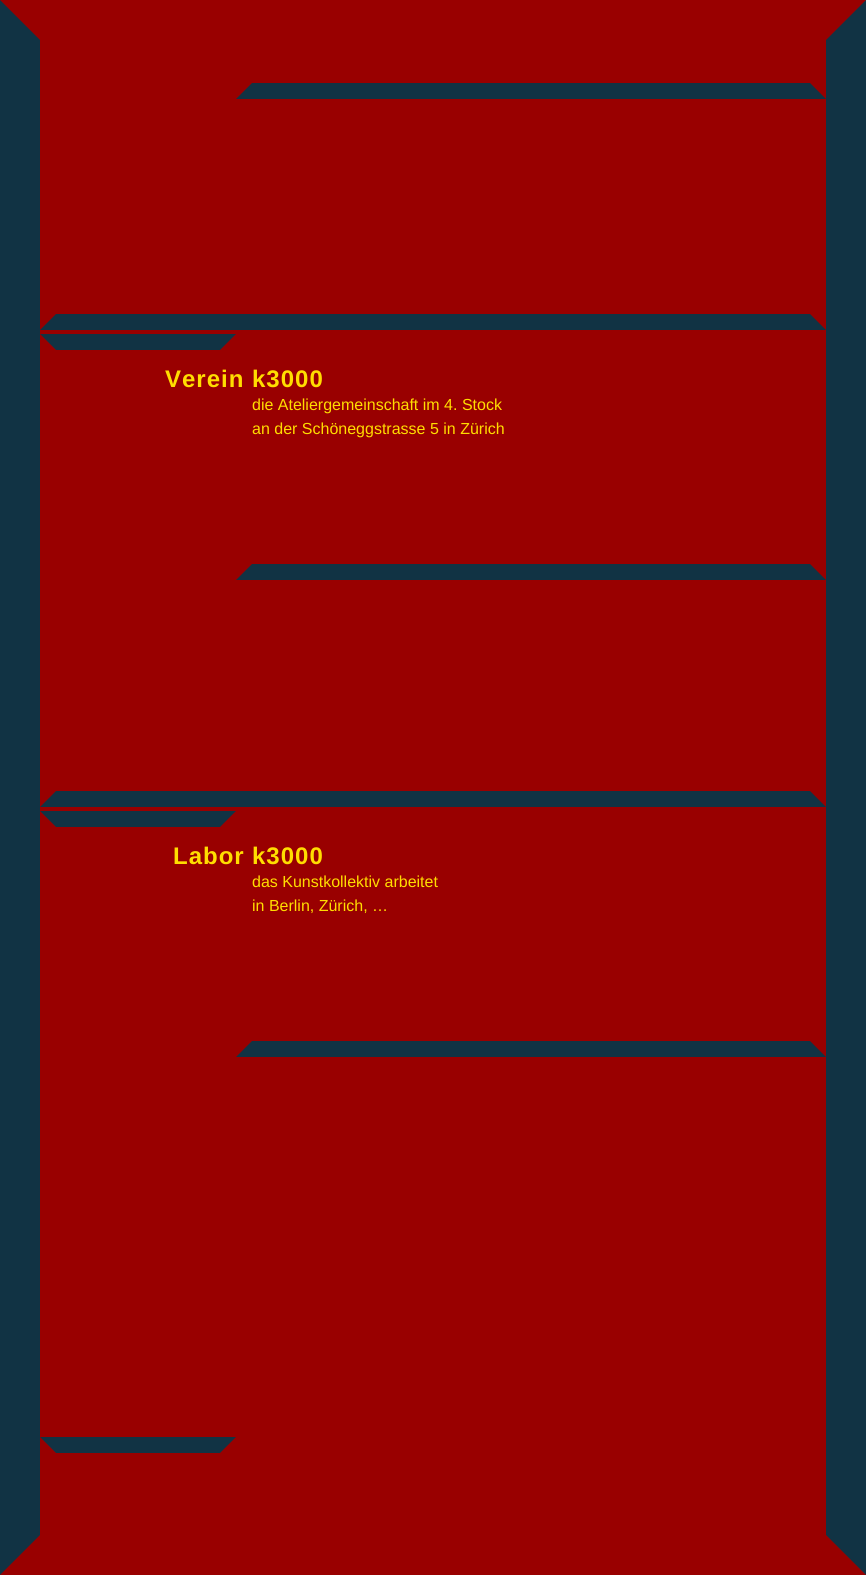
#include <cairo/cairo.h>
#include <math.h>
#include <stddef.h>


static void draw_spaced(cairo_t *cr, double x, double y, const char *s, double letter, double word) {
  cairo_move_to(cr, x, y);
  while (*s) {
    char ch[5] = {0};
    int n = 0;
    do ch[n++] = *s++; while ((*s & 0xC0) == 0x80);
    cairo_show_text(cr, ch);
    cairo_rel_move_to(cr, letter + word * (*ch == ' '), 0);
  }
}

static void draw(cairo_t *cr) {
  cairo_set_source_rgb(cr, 153 / 255.0, 0, 0);
  cairo_paint(cr);
  cairo_set_source_rgb(cr, 17 / 255.0, 51 / 255.0, 68 / 255.0);
  cairo_new_path(cr);
  cairo_move_to(cr, 866, 0);
  cairo_line_to(cr, 866, 1575);
  cairo_line_to(cr, 826, 1535);
  cairo_line_to(cr, 826, 40);
  cairo_close_path(cr);
  cairo_fill(cr);
  cairo_new_path(cr);
  cairo_move_to(cr, 0, 1575);
  cairo_line_to(cr, 0, 0);
  cairo_line_to(cr, 40, 40);
  cairo_line_to(cr, 40, 1535);
  cairo_close_path(cr);
  cairo_fill(cr);
  cairo_new_path(cr);
  cairo_move_to(cr, 826, 99);
  cairo_line_to(cr, 236, 99);
  cairo_line_to(cr, 252, 83);
  cairo_line_to(cr, 810, 83);
  cairo_close_path(cr);
  cairo_fill(cr);
  cairo_new_path(cr);
  cairo_move_to(cr, 826, 330);
  cairo_line_to(cr, 40, 330);
  cairo_line_to(cr, 56, 314);
  cairo_line_to(cr, 810, 314);
  cairo_close_path(cr);
  cairo_fill(cr);
  cairo_new_path(cr);
  cairo_move_to(cr, 40, 334);
  cairo_line_to(cr, 236, 334);
  cairo_line_to(cr, 220, 350);
  cairo_line_to(cr, 56, 350);
  cairo_close_path(cr);
  cairo_fill(cr);
  cairo_new_path(cr);
  cairo_move_to(cr, 826, 580);
  cairo_line_to(cr, 236, 580);
  cairo_line_to(cr, 252, 564);
  cairo_line_to(cr, 810, 564);
  cairo_close_path(cr);
  cairo_fill(cr);
  cairo_new_path(cr);
  cairo_move_to(cr, 826, 807);
  cairo_line_to(cr, 40, 807);
  cairo_line_to(cr, 56, 791);
  cairo_line_to(cr, 810, 791);
  cairo_close_path(cr);
  cairo_fill(cr);
  cairo_new_path(cr);
  cairo_move_to(cr, 40, 811);
  cairo_line_to(cr, 236, 811);
  cairo_line_to(cr, 220, 827);
  cairo_line_to(cr, 56, 827);
  cairo_close_path(cr);
  cairo_fill(cr);
  cairo_new_path(cr);
  cairo_move_to(cr, 826, 1057);
  cairo_line_to(cr, 236, 1057);
  cairo_line_to(cr, 252, 1041);
  cairo_line_to(cr, 810, 1041);
  cairo_close_path(cr);
  cairo_fill(cr);
  cairo_new_path(cr);
  cairo_move_to(cr, 40, 1437);
  cairo_line_to(cr, 236, 1437);
  cairo_line_to(cr, 220, 1453);
  cairo_line_to(cr, 56, 1453);
  cairo_close_path(cr);
  cairo_fill(cr);
  cairo_select_font_face(cr, "Liberation Sans", CAIRO_FONT_SLANT_NORMAL, CAIRO_FONT_WEIGHT_BOLD);
  cairo_set_font_size(cr, 24);
  cairo_set_source_rgb(cr, 1, 221 / 255.0, 0);
  draw_spaced(cr, 165, 387, "Verein", 1, 0);
  draw_spaced(cr, 252, 387, "k3000", 1, 0);
  cairo_select_font_face(cr, "Liberation Sans", CAIRO_FONT_SLANT_NORMAL, CAIRO_FONT_WEIGHT_NORMAL);
  cairo_set_font_size(cr, 16);
  cairo_move_to(cr, 252, 410);
  cairo_show_text(cr, "die Ateliergemeinschaft im 4. Stock");
  cairo_move_to(cr, 252, 434);
  cairo_show_text(cr, "an der Schöneggstrasse 5 in Zürich");
  cairo_select_font_face(cr, "Liberation Sans", CAIRO_FONT_SLANT_NORMAL, CAIRO_FONT_WEIGHT_BOLD);
  cairo_set_font_size(cr, 24);
  draw_spaced(cr, 173, 864, "Labor", 1, 0);
  draw_spaced(cr, 252, 864, "k3000", 1, 0);
  cairo_select_font_face(cr, "Liberation Sans", CAIRO_FONT_SLANT_NORMAL, CAIRO_FONT_WEIGHT_NORMAL);
  cairo_set_font_size(cr, 16);
  cairo_move_to(cr, 252, 887);
  cairo_show_text(cr, "das Kunstkollektiv arbeitet");
  cairo_move_to(cr, 252, 911);
  cairo_show_text(cr, "in Berlin, Zürich, …");
}

int main(void) {
  cairo_surface_t *surface = cairo_image_surface_create(CAIRO_FORMAT_RGB24, 866, 1575);
  cairo_t *cr = cairo_create(surface);
  cairo_font_options_t *options = cairo_font_options_create();
  cairo_font_options_set_hint_metrics(options, CAIRO_HINT_METRICS_OFF);
  cairo_font_options_set_hint_style(options, CAIRO_HINT_STYLE_NONE);
  cairo_set_font_options(cr, options);
  cairo_set_miter_limit(cr, 4);
  draw(cr);
  cairo_surface_write_to_png(surface, "out.png");
  cairo_font_options_destroy(options);
  cairo_destroy(cr);
  cairo_surface_destroy(surface);
  return 0;
}
